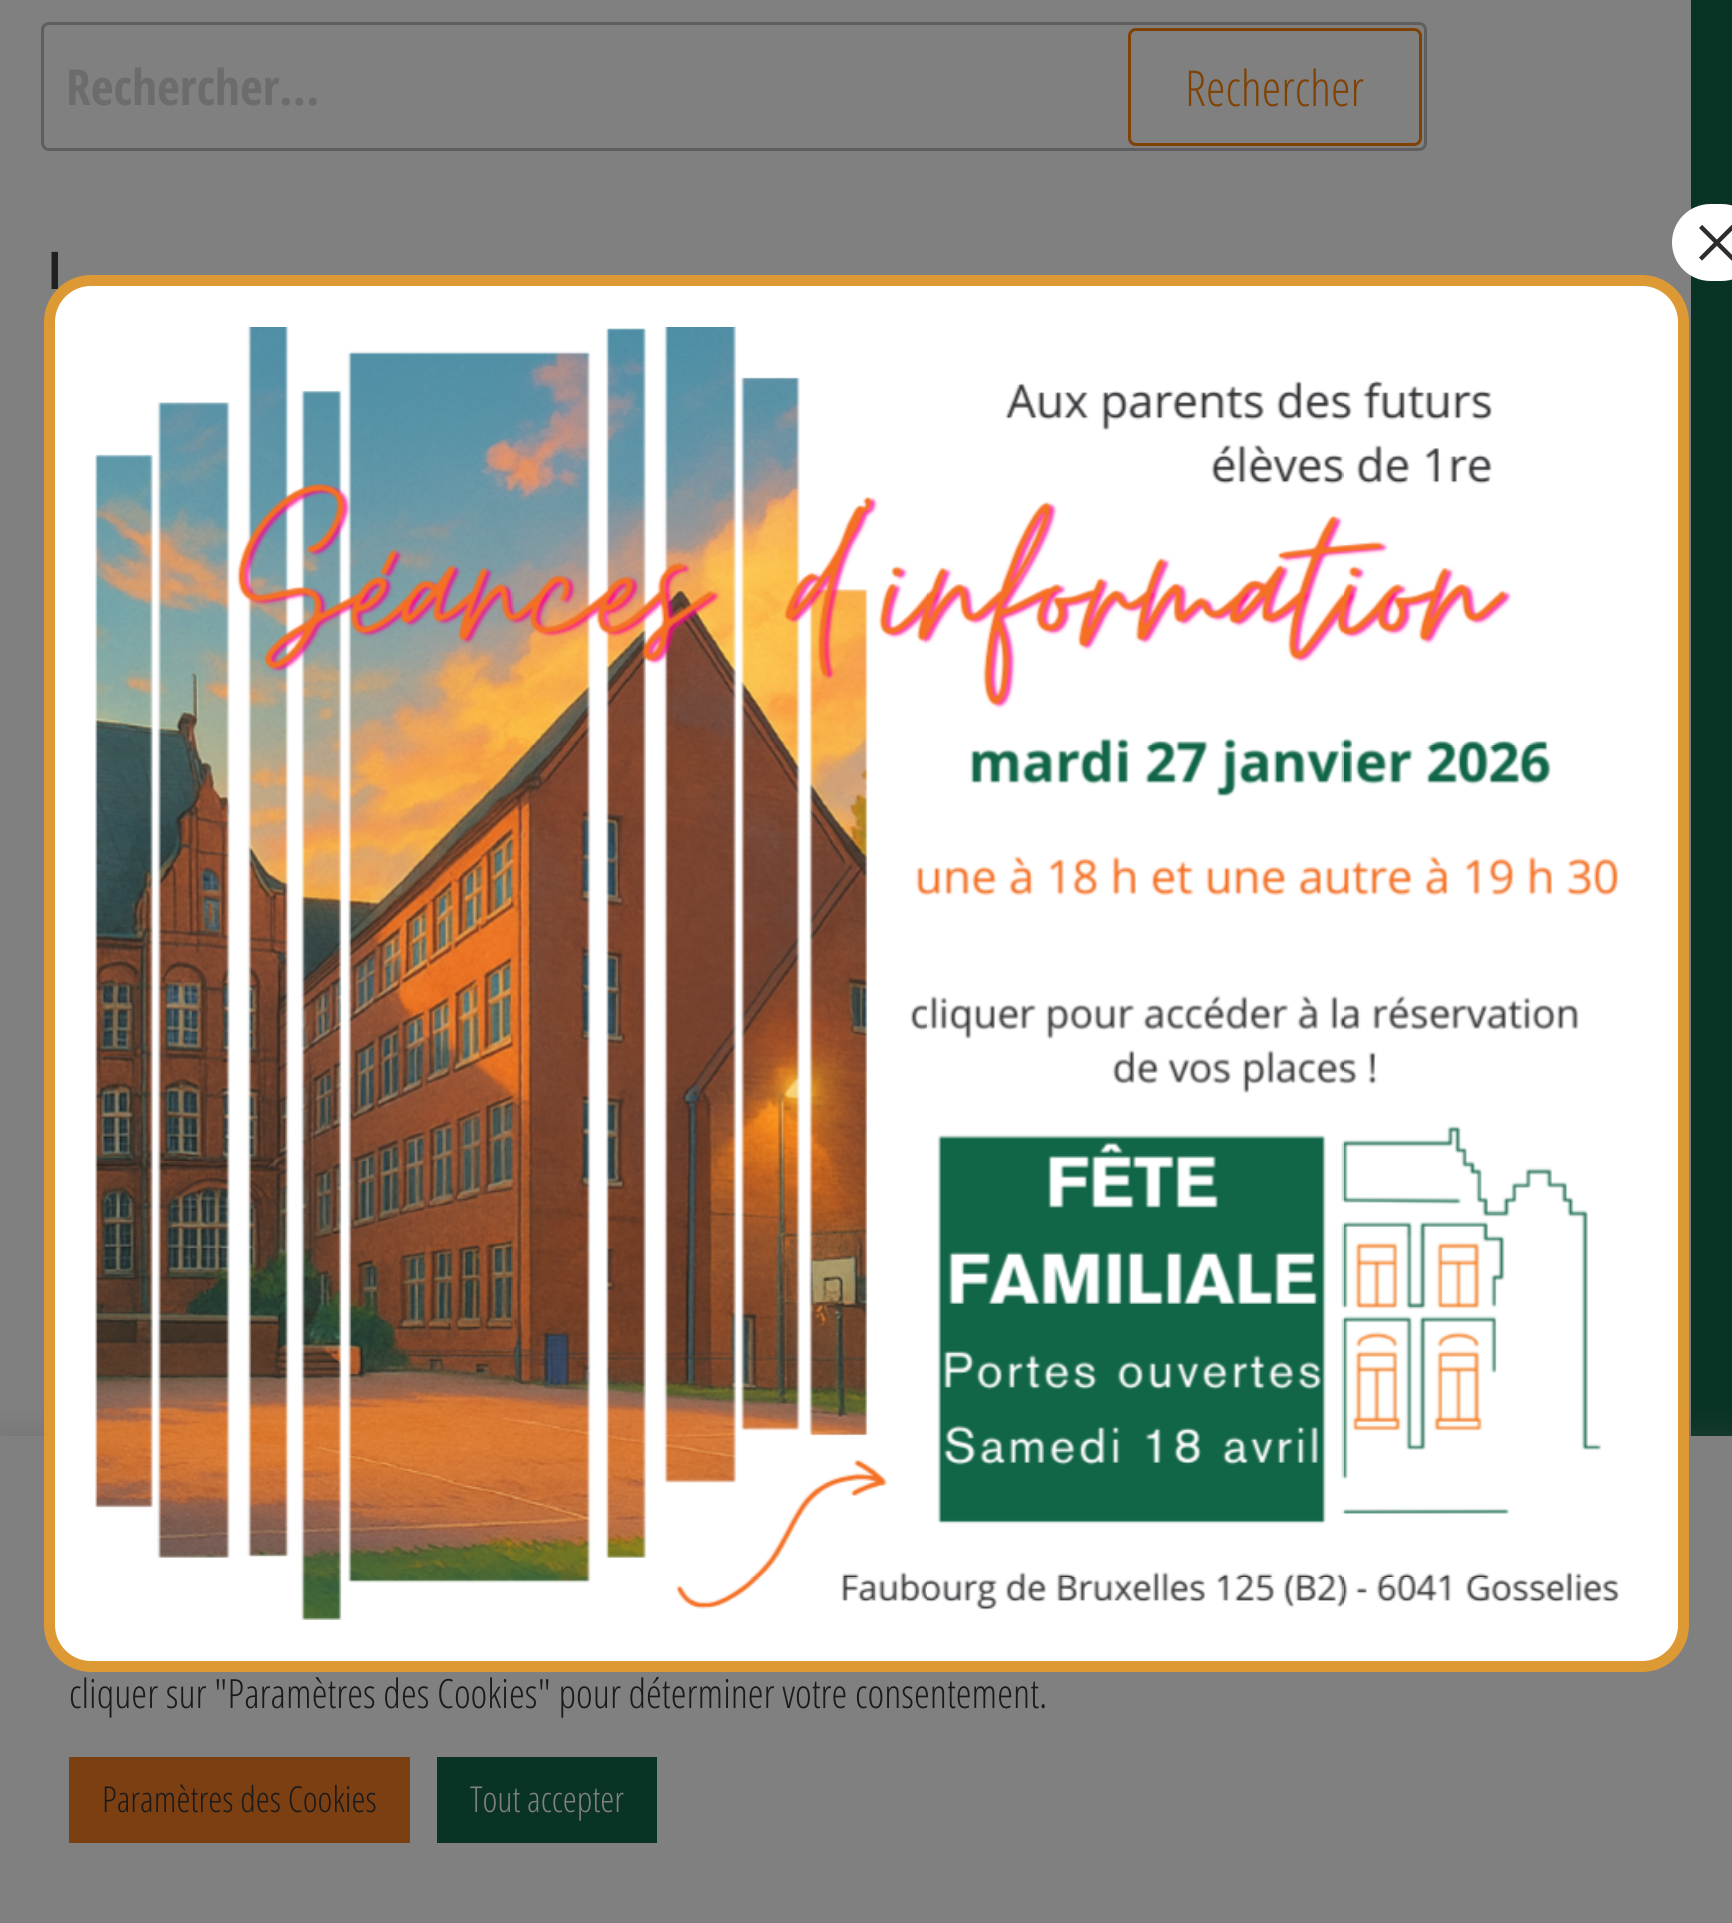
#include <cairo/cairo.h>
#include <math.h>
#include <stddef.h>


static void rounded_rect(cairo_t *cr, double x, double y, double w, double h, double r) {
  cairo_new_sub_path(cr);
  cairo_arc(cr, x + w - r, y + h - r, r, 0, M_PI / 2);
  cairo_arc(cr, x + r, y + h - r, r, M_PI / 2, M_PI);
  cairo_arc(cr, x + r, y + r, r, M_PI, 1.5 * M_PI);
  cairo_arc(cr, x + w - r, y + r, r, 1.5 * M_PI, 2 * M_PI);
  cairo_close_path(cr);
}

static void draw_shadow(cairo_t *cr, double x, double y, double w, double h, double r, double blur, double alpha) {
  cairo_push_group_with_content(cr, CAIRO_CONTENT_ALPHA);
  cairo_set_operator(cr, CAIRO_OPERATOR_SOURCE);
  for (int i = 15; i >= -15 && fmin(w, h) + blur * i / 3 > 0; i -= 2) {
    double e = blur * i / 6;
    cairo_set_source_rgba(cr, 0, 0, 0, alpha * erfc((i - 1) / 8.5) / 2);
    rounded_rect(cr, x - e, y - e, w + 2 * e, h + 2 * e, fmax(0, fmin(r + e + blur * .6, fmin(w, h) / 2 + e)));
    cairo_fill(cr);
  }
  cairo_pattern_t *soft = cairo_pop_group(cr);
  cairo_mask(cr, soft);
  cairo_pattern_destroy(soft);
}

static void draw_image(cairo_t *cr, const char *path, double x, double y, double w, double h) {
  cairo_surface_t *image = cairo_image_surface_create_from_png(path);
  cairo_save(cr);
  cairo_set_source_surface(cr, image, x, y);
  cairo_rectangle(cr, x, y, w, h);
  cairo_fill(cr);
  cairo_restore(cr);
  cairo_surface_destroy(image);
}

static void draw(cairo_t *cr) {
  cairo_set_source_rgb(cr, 9 / 255.0, 51 / 255.0, 36 / 255.0);
  cairo_paint(cr);
  cairo_set_source_rgb(cr, 128 / 255.0, 128 / 255.0, 128 / 255.0);
  cairo_rectangle(cr, 0, 0, 1691, 1436);
  cairo_fill(cr);
  rounded_rect(cr, 42.5, 23.5, 1383, 126, 6.5);
  cairo_set_source_rgb(cr, 94 / 255.0, 94 / 255.0, 94 / 255.0);
  cairo_set_line_width(cr, 3);
  cairo_stroke(cr);
  rounded_rect(cr, 1129.5, 29.5, 291, 115, 6.5);
  cairo_set_source_rgb(cr, 127 / 255.0, 66 / 255.0, 4 / 255.0);
  cairo_stroke(cr);
  cairo_set_source_rgb(cr, 86 / 255.0, 86 / 255.0, 86 / 255.0);
  draw_shadow(cr, 0, 1433, 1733, 489, 0, 14, 0.3);
  cairo_set_source_rgb(cr, 128 / 255.0, 128 / 255.0, 128 / 255.0);
  cairo_rectangle(cr, 0, 1436, 1732, 487);
  cairo_fill(cr);
  cairo_set_source_rgb(cr, 123 / 255.0, 63 / 255.0, 18 / 255.0);
  cairo_rectangle(cr, 69, 1757, 341, 86);
  cairo_fill(cr);
  cairo_set_source_rgb(cr, 9 / 255.0, 51 / 255.0, 36 / 255.0);
  cairo_rectangle(cr, 437, 1757, 220, 86);
  cairo_fill(cr);
  cairo_select_font_face(cr, "Open Sans Condensed", CAIRO_FONT_SLANT_NORMAL, CAIRO_FONT_WEIGHT_BOLD);
  cairo_set_font_size(cr, 49.5);
  cairo_set_source_rgb(cr, 108 / 255.0, 108 / 255.0, 108 / 255.0);
  cairo_move_to(cr, 66, 105);
  cairo_show_text(cr, "Rechercher…");
  cairo_select_font_face(cr, "Open Sans Condensed Light", CAIRO_FONT_SLANT_NORMAL, CAIRO_FONT_WEIGHT_NORMAL);
  cairo_set_source_rgb(cr, 127 / 255.0, 66 / 255.0, 4 / 255.0);
  cairo_move_to(cr, 1185, 106);
  cairo_show_text(cr, "Rechercher");
  cairo_select_font_face(cr, "Open Sans Condensed", CAIRO_FONT_SLANT_NORMAL, CAIRO_FONT_WEIGHT_BOLD);
  cairo_set_font_size(cr, 52);
  cairo_set_source_rgb(cr, 32 / 255.0, 32 / 255.0, 32 / 255.0);
  cairo_move_to(cr, 47, 289);
  cairo_show_text(cr, "I");
  cairo_set_source_rgb(cr, 1, 1, 1);
  rounded_rect(cr, 49.5, 280.5, 1634, 1386, 41.5);
  cairo_fill_preserve(cr);
  cairo_set_source_rgb(cr, 221 / 255.0, 153 / 255.0, 51 / 255.0);
  cairo_set_line_width(cr, 11);
  cairo_stroke(cr);
  cairo_set_source_rgb(cr, 1, 1, 1);
  rounded_rect(cr, 1672, 204, 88, 77, 38.5);
  cairo_fill(cr);
  cairo_select_font_face(cr, "Liberation Serif", CAIRO_FONT_SLANT_NORMAL, CAIRO_FONT_WEIGHT_NORMAL);
  cairo_set_font_size(cr, 88);
  cairo_set_source_rgb(cr, 45 / 255.0, 45 / 255.0, 45 / 255.0);
  cairo_move_to(cr, 1692, 272);
  cairo_show_text(cr, "×");
  draw_image(cr, "images/1.png", 95, 327, 1524, 1293);
  cairo_select_font_face(cr, "Open Sans Condensed Light", CAIRO_FONT_SLANT_NORMAL, CAIRO_FONT_WEIGHT_NORMAL);
  cairo_set_font_size(cr, 40.3);
  cairo_set_source_rgb(cr, 26 / 255.0, 26 / 255.0, 26 / 255.0);
  cairo_move_to(cr, 69, 1708);
  cairo_show_text(cr, "cliquer sur \"Paramètres des Cookies\" pour déterminer votre consentement.");
  cairo_set_font_size(cr, 35.75);
  cairo_move_to(cr, 102, 1812);
  cairo_show_text(cr, "Paramètres des Cookies");
  cairo_set_source_rgb(cr, 128 / 255.0, 128 / 255.0, 128 / 255.0);
  cairo_move_to(cr, 470, 1812);
  cairo_show_text(cr, "Tout accepter");
}

int main(void) {
  cairo_surface_t *surface = cairo_image_surface_create(CAIRO_FORMAT_RGB24, 1732, 1923);
  cairo_t *cr = cairo_create(surface);
  cairo_font_options_t *options = cairo_font_options_create();
  cairo_font_options_set_hint_metrics(options, CAIRO_HINT_METRICS_OFF);
  cairo_font_options_set_hint_style(options, CAIRO_HINT_STYLE_NONE);
  cairo_set_font_options(cr, options);
  cairo_set_miter_limit(cr, 4);
  draw(cr);
  cairo_surface_write_to_png(surface, "out.png");
  cairo_font_options_destroy(options);
  cairo_destroy(cr);
  cairo_surface_destroy(surface);
  return 0;
}
